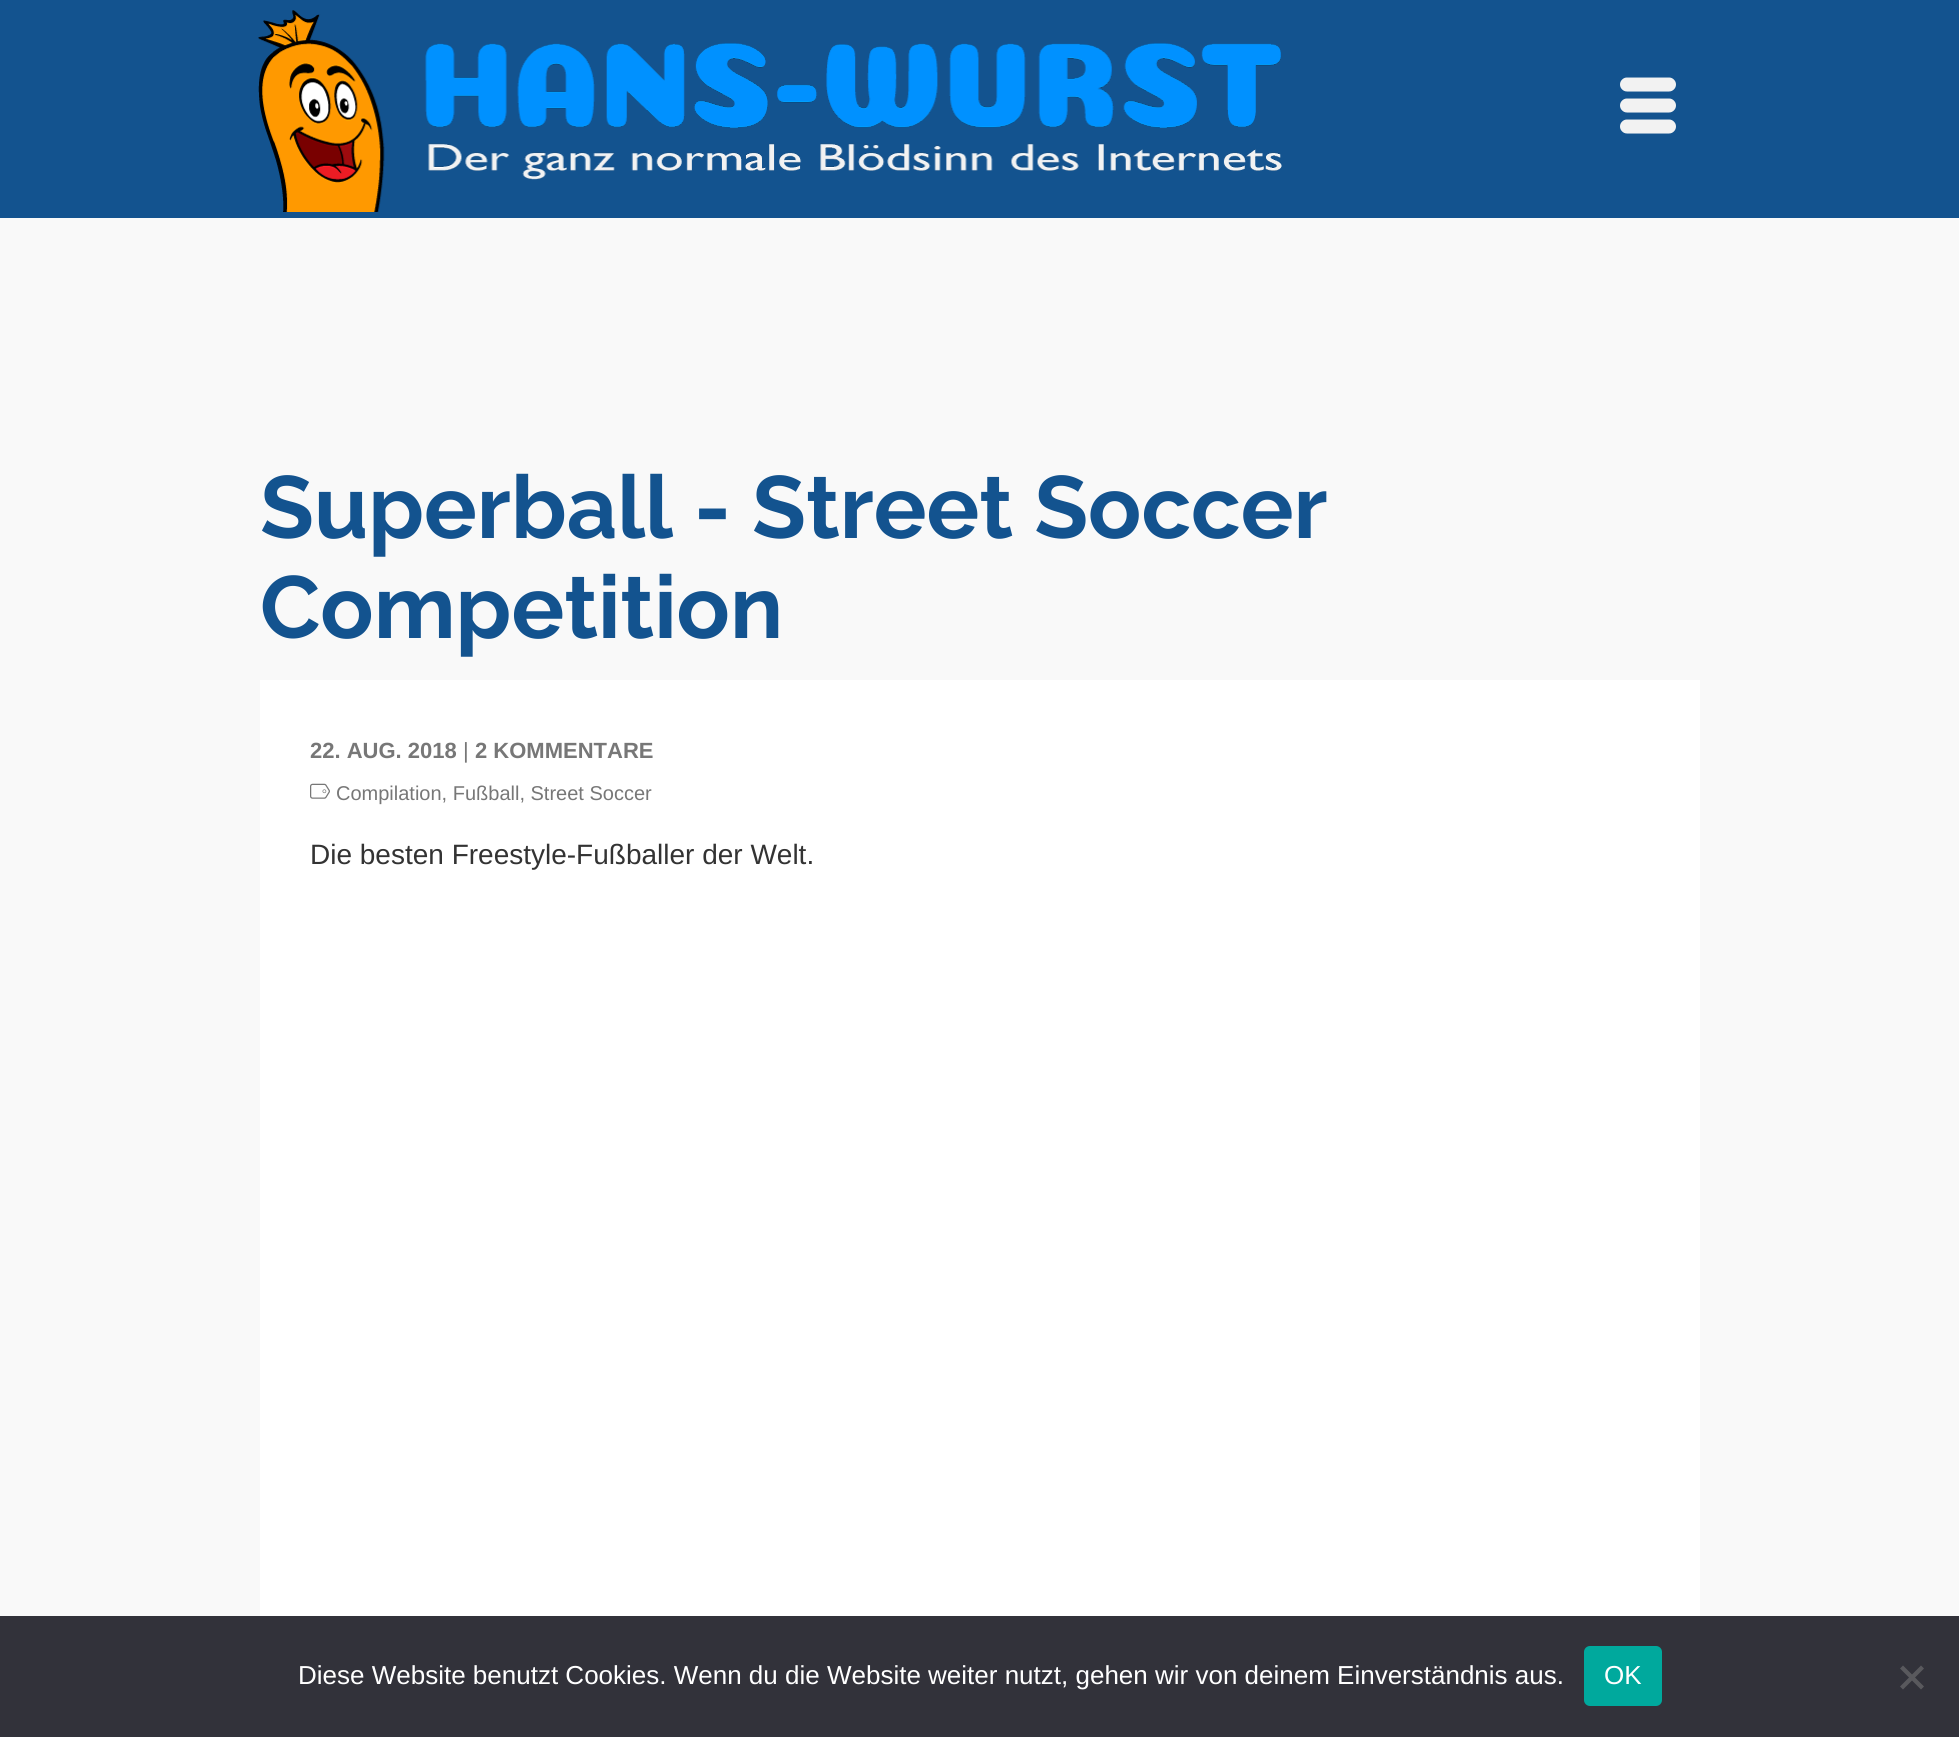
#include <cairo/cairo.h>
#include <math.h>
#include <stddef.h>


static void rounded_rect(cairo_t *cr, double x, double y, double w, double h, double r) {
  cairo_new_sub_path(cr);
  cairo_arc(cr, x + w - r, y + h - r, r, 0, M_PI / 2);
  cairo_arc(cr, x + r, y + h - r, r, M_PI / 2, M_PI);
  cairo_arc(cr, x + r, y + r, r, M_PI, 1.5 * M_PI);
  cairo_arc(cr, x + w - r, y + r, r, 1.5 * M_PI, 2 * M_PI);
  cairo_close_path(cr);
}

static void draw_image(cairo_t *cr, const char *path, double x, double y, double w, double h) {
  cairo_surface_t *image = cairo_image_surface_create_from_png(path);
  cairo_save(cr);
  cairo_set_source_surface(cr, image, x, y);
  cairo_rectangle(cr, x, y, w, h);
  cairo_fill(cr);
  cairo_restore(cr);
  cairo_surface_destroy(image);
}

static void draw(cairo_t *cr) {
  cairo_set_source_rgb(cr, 19 / 255.0, 83 / 255.0, 143 / 255.0);
  cairo_paint(cr);
  draw_image(cr, "images/1.png", 258, 10, 1024, 202);
  draw_image(cr, "images/2.png", 1620, 77, 56, 57);
  cairo_set_source_rgb(cr, 249 / 255.0, 249 / 255.0, 249 / 255.0);
  cairo_rectangle(cr, 0, 218, 1959, 1398);
  cairo_fill(cr);
  cairo_set_source_rgb(cr, 1, 1, 1);
  cairo_rectangle(cr, 260, 680, 1440, 936);
  cairo_fill(cr);
  draw_image(cr, "images/3.png", 310, 783, 20, 16);
  cairo_set_source_rgb(cr, 50 / 255.0, 50 / 255.0, 58 / 255.0);
  cairo_rectangle(cr, 0, 1616, 1959, 121);
  cairo_fill(cr);
  cairo_set_source_rgb(cr, 0, 169 / 255.0, 157 / 255.0);
  rounded_rect(cr, 1584, 1646, 78, 60, 6);
  cairo_fill(cr);
  cairo_set_source_rgb(cr, 89 / 255.0, 89 / 255.0, 93 / 255.0);
  cairo_new_path(cr);
  cairo_move_to(cr, 1921, 1665.5);
  cairo_line_to(cr, 1924, 1668.5);
  cairo_line_to(cr, 1903, 1689.5);
  cairo_line_to(cr, 1900, 1686.5);
  cairo_close_path(cr);
  cairo_fill(cr);
  cairo_new_path(cr);
  cairo_move_to(cr, 1900, 1668.5);
  cairo_line_to(cr, 1903, 1665.5);
  cairo_line_to(cr, 1924, 1686.5);
  cairo_line_to(cr, 1921, 1689.5);
  cairo_close_path(cr);
  cairo_fill(cr);
  cairo_select_font_face(cr, "Raleway", CAIRO_FONT_SLANT_NORMAL, CAIRO_FONT_WEIGHT_BOLD);
  cairo_set_font_size(cr, 88);
  cairo_set_source_rgb(cr, 19 / 255.0, 83 / 255.0, 143 / 255.0);
  cairo_move_to(cr, 260, 538);
  cairo_show_text(cr, "Superball - Street Soccer");
  cairo_move_to(cr, 260, 638);
  cairo_show_text(cr, "Competition");
  cairo_select_font_face(cr, "Liberation Sans", CAIRO_FONT_SLANT_NORMAL, CAIRO_FONT_WEIGHT_BOLD);
  cairo_set_font_size(cr, 22);
  cairo_set_source_rgb(cr, 119 / 255.0, 119 / 255.0, 119 / 255.0);
  cairo_move_to(cr, 310, 758);
  cairo_show_text(cr, "22. AUG. 2018");
  cairo_select_font_face(cr, "Liberation Sans", CAIRO_FONT_SLANT_NORMAL, CAIRO_FONT_WEIGHT_NORMAL);
  cairo_move_to(cr, 463, 758);
  cairo_show_text(cr, "|");
  cairo_select_font_face(cr, "Liberation Sans", CAIRO_FONT_SLANT_NORMAL, CAIRO_FONT_WEIGHT_BOLD);
  cairo_move_to(cr, 475, 758);
  cairo_show_text(cr, "2 KOMMENTARE");
  cairo_select_font_face(cr, "Liberation Sans", CAIRO_FONT_SLANT_NORMAL, CAIRO_FONT_WEIGHT_NORMAL);
  cairo_set_font_size(cr, 20);
  cairo_move_to(cr, 336, 800);
  cairo_show_text(cr, "Compilation, Fußball, Street Soccer");
  cairo_set_font_size(cr, 28);
  cairo_set_source_rgb(cr, 51 / 255.0, 51 / 255.0, 51 / 255.0);
  cairo_move_to(cr, 310, 864);
  cairo_show_text(cr, "Die besten Freestyle-Fußballer der Welt.");
  cairo_set_font_size(cr, 26);
  cairo_set_source_rgb(cr, 1, 1, 1);
  cairo_move_to(cr, 298, 1684);
  cairo_show_text(cr, "Diese Website benutzt Cookies. Wenn du die Website weiter nutzt, gehen wir von deinem Einverständnis aus.");
  cairo_move_to(cr, 1604, 1684);
  cairo_show_text(cr, "OK");
}

int main(void) {
  cairo_surface_t *surface = cairo_image_surface_create(CAIRO_FORMAT_RGB24, 1959, 1737);
  cairo_t *cr = cairo_create(surface);
  cairo_font_options_t *options = cairo_font_options_create();
  cairo_font_options_set_hint_metrics(options, CAIRO_HINT_METRICS_OFF);
  cairo_font_options_set_hint_style(options, CAIRO_HINT_STYLE_NONE);
  cairo_set_font_options(cr, options);
  cairo_set_miter_limit(cr, 4);
  draw(cr);
  cairo_surface_write_to_png(surface, "out.png");
  cairo_font_options_destroy(options);
  cairo_destroy(cr);
  cairo_surface_destroy(surface);
  return 0;
}
